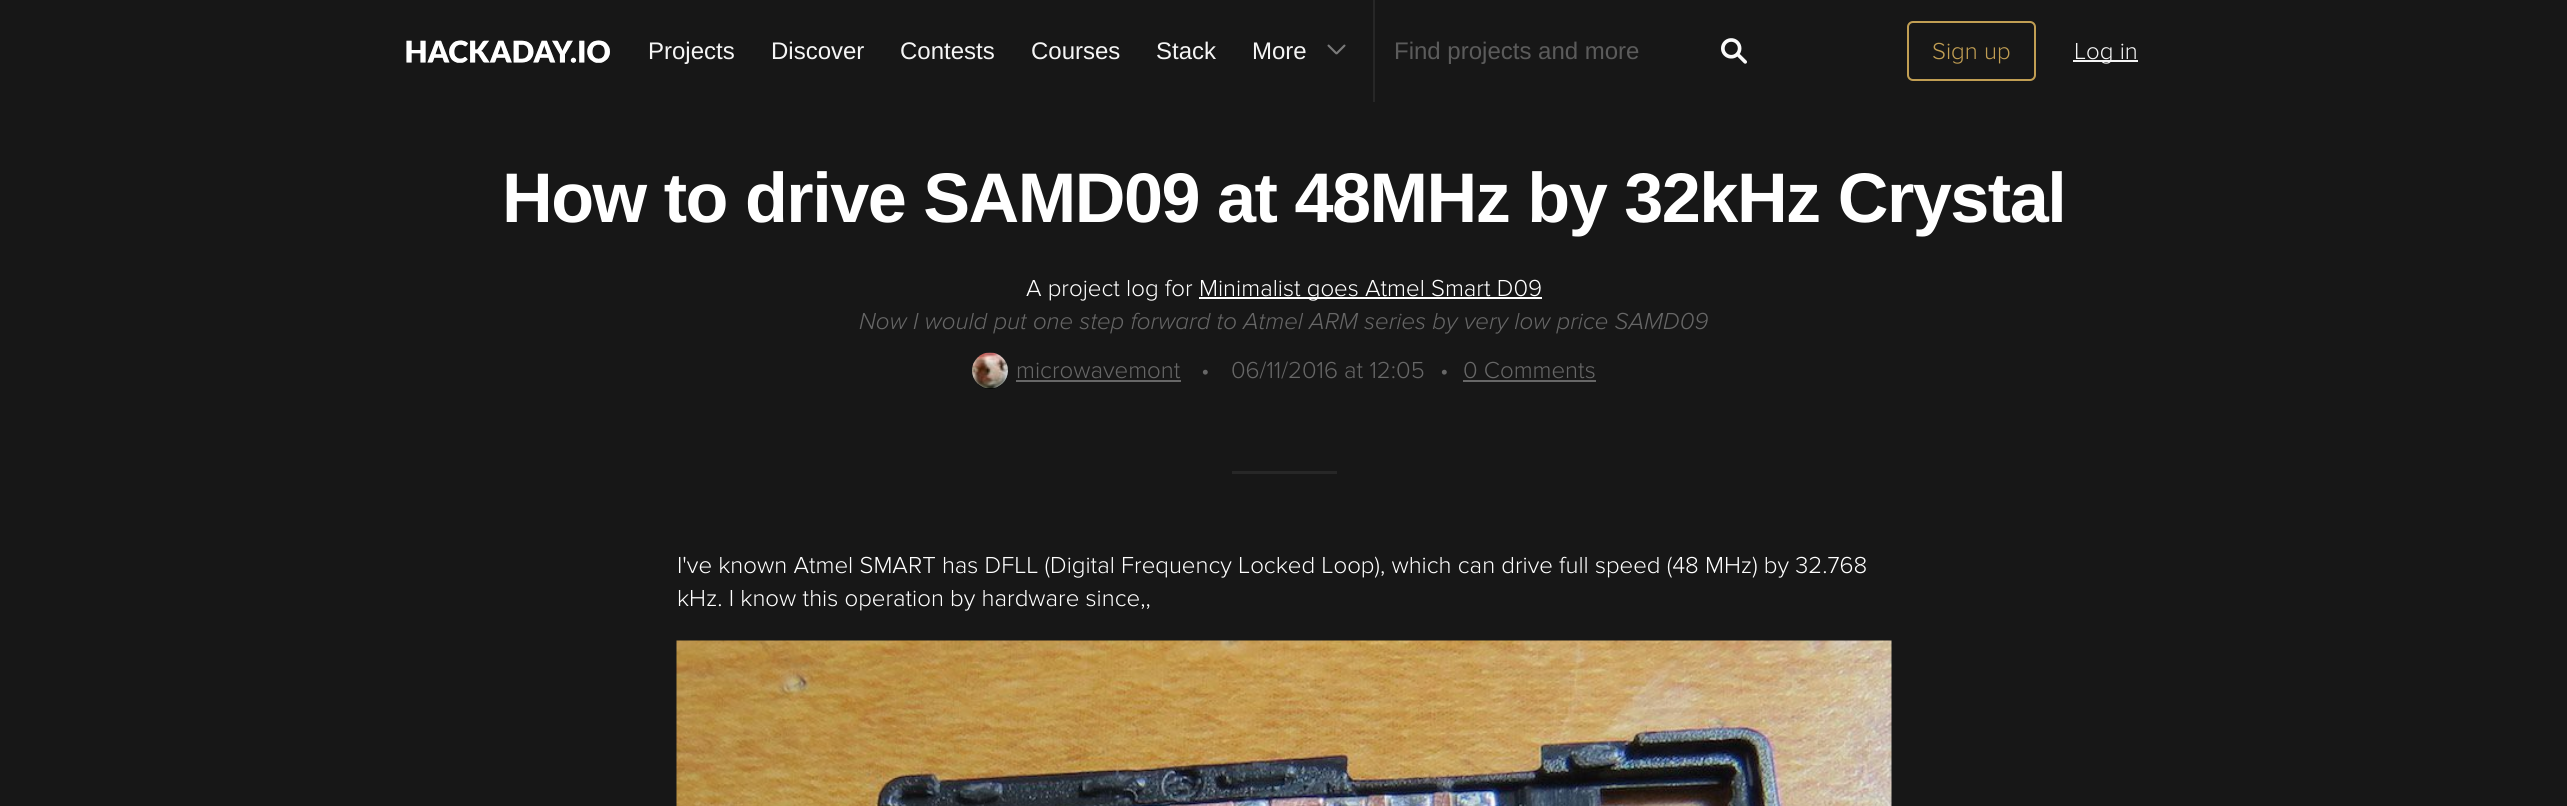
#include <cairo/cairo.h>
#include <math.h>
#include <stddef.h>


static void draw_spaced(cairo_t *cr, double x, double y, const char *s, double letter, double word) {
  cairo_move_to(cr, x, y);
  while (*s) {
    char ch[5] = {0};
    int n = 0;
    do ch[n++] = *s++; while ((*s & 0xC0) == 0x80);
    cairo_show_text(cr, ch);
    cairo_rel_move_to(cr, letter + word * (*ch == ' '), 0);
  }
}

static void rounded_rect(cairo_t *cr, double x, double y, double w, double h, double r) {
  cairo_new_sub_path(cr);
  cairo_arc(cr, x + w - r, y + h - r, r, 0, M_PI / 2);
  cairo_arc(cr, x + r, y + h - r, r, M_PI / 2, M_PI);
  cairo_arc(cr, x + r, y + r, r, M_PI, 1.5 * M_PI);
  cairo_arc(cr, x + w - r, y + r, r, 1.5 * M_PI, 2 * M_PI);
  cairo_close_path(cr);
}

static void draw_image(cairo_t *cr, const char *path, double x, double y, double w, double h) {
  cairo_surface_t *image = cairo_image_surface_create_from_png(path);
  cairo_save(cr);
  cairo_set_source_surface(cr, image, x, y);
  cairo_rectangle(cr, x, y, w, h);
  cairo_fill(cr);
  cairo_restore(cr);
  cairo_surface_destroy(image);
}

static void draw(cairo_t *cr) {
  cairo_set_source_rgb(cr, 23 / 255.0, 23 / 255.0, 23 / 255.0);
  cairo_paint(cr);
  draw_image(cr, "images/1.png", 406, 40, 204, 23);
  draw_image(cr, "images/2.png", 1327, 44, 19, 11);
  cairo_set_source_rgb(cr, 39 / 255.0, 39 / 255.0, 39 / 255.0);
  cairo_rectangle(cr, 1373, 0, 2, 102);
  cairo_fill(cr);
  draw_image(cr, "images/3.png", 1721, 38, 26, 26);
  rounded_rect(cr, 1908, 22, 127, 58, 5);
  cairo_set_source_rgb(cr, 193 / 255.0, 158 / 255.0, 83 / 255.0);
  cairo_stroke(cr);
  cairo_set_source_rgb(cr, 245 / 255.0, 245 / 255.0, 245 / 255.0);
  cairo_rectangle(cr, 2073, 60, 65, 2);
  cairo_fill(cr);
  cairo_set_source_rgb(cr, 1, 1, 1);
  cairo_rectangle(cr, 1199, 297, 343, 2);
  cairo_fill(cr);
  cairo_set_source_rgb(cr, 0, 0, 0);
  cairo_arc(cr, 990, 371, 18, 0, 2 * M_PI);
  cairo_fill(cr);
  draw_image(cr, "images/4.png", 972, 352, 36, 37);
  cairo_set_source_rgb(cr, 103 / 255.0, 103 / 255.0, 103 / 255.0);
  cairo_rectangle(cr, 1016, 380, 165, 2);
  cairo_fill(cr);
  cairo_rectangle(cr, 1463, 380, 133, 2);
  cairo_fill(cr);
  cairo_set_source_rgb(cr, 39 / 255.0, 39 / 255.0, 39 / 255.0);
  cairo_rectangle(cr, 1232, 471, 105, 3);
  cairo_fill(cr);
  draw_image(cr, "images/5.png", 676, 640, 1216, 166);
  cairo_select_font_face(cr, "Liberation Sans", CAIRO_FONT_SLANT_NORMAL, CAIRO_FONT_WEIGHT_NORMAL);
  cairo_set_font_size(cr, 24);
  cairo_set_source_rgb(cr, 245 / 255.0, 245 / 255.0, 245 / 255.0);
  cairo_move_to(cr, 648, 59);
  cairo_show_text(cr, "Projects");
  cairo_move_to(cr, 771, 59);
  cairo_show_text(cr, "Discover");
  cairo_move_to(cr, 900, 59);
  cairo_show_text(cr, "Contests");
  cairo_move_to(cr, 1031, 59);
  cairo_show_text(cr, "Courses");
  cairo_move_to(cr, 1156, 59);
  cairo_show_text(cr, "Stack");
  cairo_move_to(cr, 1252, 59);
  cairo_show_text(cr, "More");
  cairo_set_source_rgb(cr, 91 / 255.0, 91 / 255.0, 91 / 255.0);
  cairo_move_to(cr, 1394, 59);
  cairo_show_text(cr, "Find projects and more");
  cairo_select_font_face(cr, "Proxima Nova Light", CAIRO_FONT_SLANT_NORMAL, CAIRO_FONT_WEIGHT_NORMAL);
  cairo_set_source_rgb(cr, 193 / 255.0, 158 / 255.0, 83 / 255.0);
  cairo_move_to(cr, 1932, 59);
  cairo_show_text(cr, "Sign up");
  cairo_set_source_rgb(cr, 245 / 255.0, 245 / 255.0, 245 / 255.0);
  cairo_move_to(cr, 2074, 59);
  cairo_show_text(cr, "Log in");
  cairo_select_font_face(cr, "Liberation Sans", CAIRO_FONT_SLANT_NORMAL, CAIRO_FONT_WEIGHT_BOLD);
  cairo_set_font_size(cr, 70.2);
  cairo_set_source_rgb(cr, 1, 1, 1);
  draw_spaced(cr, 502, 222, "How to drive SAMD09 at 48MHz by 32kHz Crystal", -1.5, 0);
  cairo_select_font_face(cr, "Proxima Nova Light", CAIRO_FONT_SLANT_NORMAL, CAIRO_FONT_WEIGHT_NORMAL);
  cairo_set_font_size(cr, 24);
  cairo_move_to(cr, 1026, 296);
  cairo_show_text(cr, "A project log for");
  cairo_move_to(cr, 1199, 296);
  cairo_show_text(cr, "Minimalist goes Atmel Smart D09");
  cairo_select_font_face(cr, "Proxima Nova Light", CAIRO_FONT_SLANT_ITALIC, CAIRO_FONT_WEIGHT_NORMAL);
  cairo_set_source_rgb(cr, 103 / 255.0, 103 / 255.0, 103 / 255.0);
  cairo_move_to(cr, 859, 329);
  cairo_show_text(cr, "Now I would put one step forward to Atmel ARM series by very low price SAMD09");
  cairo_select_font_face(cr, "Proxima Nova Light", CAIRO_FONT_SLANT_NORMAL, CAIRO_FONT_WEIGHT_NORMAL);
  cairo_move_to(cr, 1016, 378);
  cairo_show_text(cr, "microwavemont");
  cairo_move_to(cr, 1201, 378);
  cairo_show_text(cr, "•");
  cairo_move_to(cr, 1231, 378);
  cairo_show_text(cr, "06/11/2016 at 12:05");
  cairo_move_to(cr, 1440, 378);
  cairo_show_text(cr, "•");
  cairo_move_to(cr, 1463, 378);
  cairo_show_text(cr, "0 Comments");
  cairo_set_source_rgb(cr, 1, 1, 1);
  cairo_move_to(cr, 677, 573);
  cairo_show_text(cr, "I've known Atmel SMART has DFLL (Digital Frequency Locked Loop), which can drive full speed (48 MHz) by 32.768");
  cairo_move_to(cr, 677, 606);
  cairo_show_text(cr, "kHz. I know this operation by hardware since,,");
}

int main(void) {
  cairo_surface_t *surface = cairo_image_surface_create(CAIRO_FORMAT_RGB24, 2567, 806);
  cairo_t *cr = cairo_create(surface);
  cairo_font_options_t *options = cairo_font_options_create();
  cairo_font_options_set_hint_metrics(options, CAIRO_HINT_METRICS_OFF);
  cairo_font_options_set_hint_style(options, CAIRO_HINT_STYLE_NONE);
  cairo_set_font_options(cr, options);
  cairo_set_miter_limit(cr, 4);
  draw(cr);
  cairo_surface_write_to_png(surface, "out.png");
  cairo_font_options_destroy(options);
  cairo_destroy(cr);
  cairo_surface_destroy(surface);
  return 0;
}
